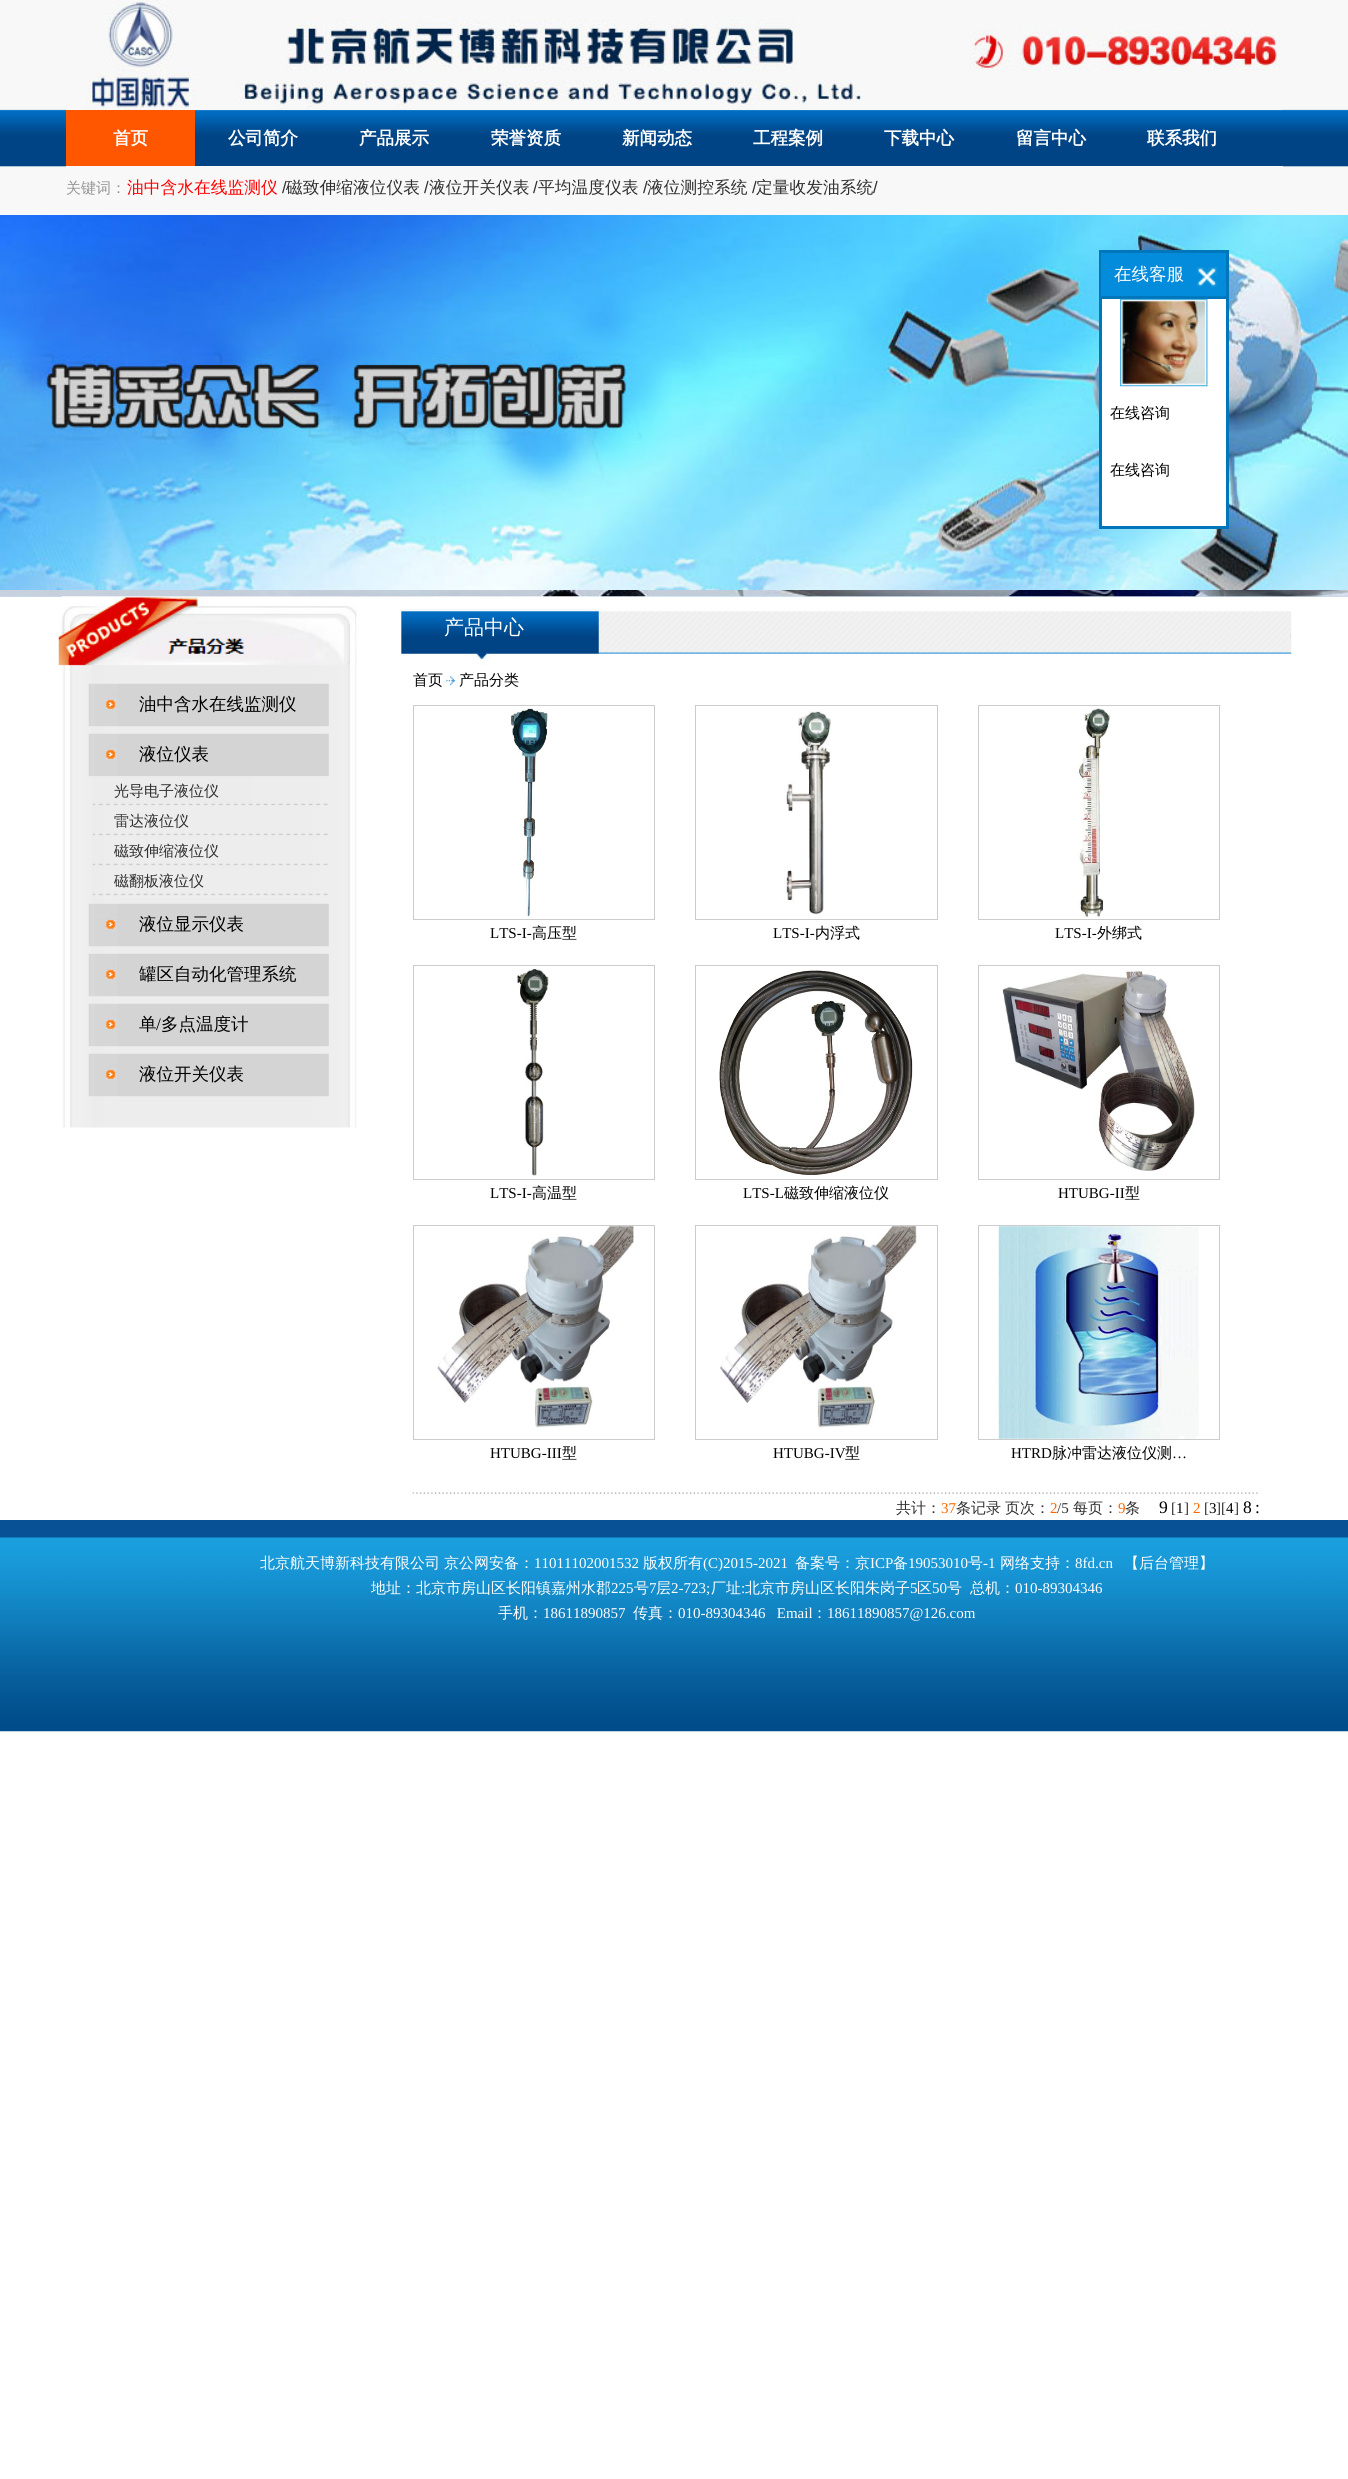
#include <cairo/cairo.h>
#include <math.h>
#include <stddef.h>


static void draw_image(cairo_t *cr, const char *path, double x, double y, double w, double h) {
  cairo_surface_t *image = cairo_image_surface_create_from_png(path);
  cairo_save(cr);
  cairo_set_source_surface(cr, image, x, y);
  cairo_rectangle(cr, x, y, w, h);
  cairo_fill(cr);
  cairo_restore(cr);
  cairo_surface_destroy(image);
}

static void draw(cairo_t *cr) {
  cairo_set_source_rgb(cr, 1, 1, 1);
  cairo_paint(cr);
  draw_image(cr, "images/1.png", 0, 0, 1348, 215);
  draw_image(cr, "images/2.png", 66, 0, 894, 110);
  draw_image(cr, "images/3.png", 960, 30, 322, 80);
  cairo_set_source_rgb(cr, 1, 86 / 255.0, 0);
  cairo_rectangle(cr, 66, 110, 129, 56);
  cairo_fill(cr);
  cairo_set_source_rgb(cr, 248 / 255.0, 248 / 255.0, 248 / 255.0);
  cairo_rectangle(cr, 66, 166, 1217, 1);
  cairo_fill(cr);
  draw_image(cr, "images/4.png", 0, 215, 1348, 375);
  draw_image(cr, "images/9.png", 58, 596, 299, 532);
  draw_image(cr, "images/6.png", 0, 596, 1348, 1);
  draw_image(cr, "images/5.png", 0, 590, 1348, 7);
  cairo_set_source_rgb(cr, 1, 1, 1);
  cairo_rectangle(cr, 1102, 299, 124, 227);
  cairo_fill(cr);
  cairo_rectangle(cr, 1100.5, 251.5, 127, 276);
  cairo_set_source_rgb(cr, 1 / 255.0, 118 / 255.0, 186 / 255.0);
  cairo_set_line_width(cr, 3);
  cairo_stroke(cr);
  cairo_set_source_rgb(cr, 3 / 255.0, 139 / 255.0, 220 / 255.0);
  cairo_rectangle(cr, 1101, 253, 125, 43);
  cairo_fill(cr);
  cairo_set_source_rgb(cr, 1 / 255.0, 118 / 255.0, 186 / 255.0);
  cairo_rectangle(cr, 1101, 296, 125, 3);
  cairo_fill(cr);
  draw_image(cr, "images/7.png", 1189, 267, 35, 30);
  draw_image(cr, "images/8.png", 1120, 298, 88, 89);
  draw_image(cr, "images/10.png", 88, 683, 241, 44);
  draw_image(cr, "images/10.png", 88, 733, 241, 44);
  draw_image(cr, "images/11.png", 89, 776, 239, 30);
  draw_image(cr, "images/12.png", 92, 833, 236, 3);
  draw_image(cr, "images/12.png", 92, 863, 236, 3);
  draw_image(cr, "images/12.png", 92, 893, 236, 3);
  draw_image(cr, "images/10.png", 88, 903, 241, 44);
  draw_image(cr, "images/10.png", 88, 953, 241, 44);
  draw_image(cr, "images/10.png", 88, 1003, 241, 44);
  draw_image(cr, "images/10.png", 88, 1053, 241, 44);
  draw_image(cr, "images/13.png", 401, 609, 891, 56);
  draw_image(cr, "images/14.png", 446, 676, 10, 10);
  cairo_rectangle(cr, 413.5, 705.5, 241, 214);
  cairo_set_source_rgb(cr, 204 / 255.0, 204 / 255.0, 204 / 255.0);
  cairo_set_line_width(cr, 1);
  cairo_stroke(cr);
  draw_image(cr, "images/15.png", 508, 708, 40, 209);
  cairo_rectangle(cr, 695.5, 705.5, 242, 214);
  cairo_stroke(cr);
  draw_image(cr, "images/16.png", 784, 710, 47, 205);
  cairo_rectangle(cr, 978.5, 705.5, 241, 214);
  cairo_stroke(cr);
  draw_image(cr, "images/17.png", 1078, 708, 33, 209);
  cairo_rectangle(cr, 413.5, 965.5, 241, 214);
  cairo_stroke(cr);
  draw_image(cr, "images/18.png", 517, 969, 33, 207);
  cairo_rectangle(cr, 695.5, 965.5, 242, 214);
  cairo_stroke(cr);
  draw_image(cr, "images/19.png", 719, 970, 194, 206);
  cairo_rectangle(cr, 978.5, 965.5, 241, 214);
  cairo_stroke(cr);
  draw_image(cr, "images/20.png", 1002, 970, 194, 201);
  cairo_rectangle(cr, 413.5, 1225.5, 241, 214);
  cairo_stroke(cr);
  draw_image(cr, "images/21.png", 437, 1226, 197, 202);
  cairo_rectangle(cr, 695.5, 1225.5, 242, 214);
  cairo_stroke(cr);
  draw_image(cr, "images/22.png", 720, 1226, 197, 202);
  cairo_rectangle(cr, 978.5, 1225.5, 241, 214);
  cairo_stroke(cr);
  draw_image(cr, "images/23.png", 998, 1226, 201, 213);
  draw_image(cr, "images/24.png", 412, 1492, 848, 2);
  draw_image(cr, "images/25.png", 0, 1520, 1348, 212);
  cairo_select_font_face(cr, "WenQuanYi Zen Hei", CAIRO_FONT_SLANT_NORMAL, CAIRO_FONT_WEIGHT_BOLD);
  cairo_set_font_size(cr, 17.5);
  cairo_set_source_rgb(cr, 1, 1, 1);
  cairo_move_to(cr, 113, 144);
  cairo_show_text(cr, "首页");
  cairo_move_to(cr, 228, 144);
  cairo_show_text(cr, "公司简介");
  cairo_move_to(cr, 359, 144);
  cairo_show_text(cr, "产品展示");
  cairo_move_to(cr, 491, 144);
  cairo_show_text(cr, "荣誉资质");
  cairo_move_to(cr, 622, 144);
  cairo_show_text(cr, "新闻动态");
  cairo_move_to(cr, 753, 144);
  cairo_show_text(cr, "工程案例");
  cairo_move_to(cr, 884, 144);
  cairo_show_text(cr, "下载中心");
  cairo_move_to(cr, 1016, 144);
  cairo_show_text(cr, "留言中心");
  cairo_move_to(cr, 1147, 144);
  cairo_show_text(cr, "联系我们");
  cairo_select_font_face(cr, "WenQuanYi Zen Hei Medium", CAIRO_FONT_SLANT_NORMAL, CAIRO_FONT_WEIGHT_NORMAL);
  cairo_set_font_size(cr, 15);
  cairo_set_source_rgb(cr, 148 / 255.0, 148 / 255.0, 148 / 255.0);
  cairo_move_to(cr, 66, 193);
  cairo_show_text(cr, "关键词：");
  cairo_set_font_size(cr, 16.75);
  cairo_set_source_rgb(cr, 1, 0, 0);
  cairo_move_to(cr, 127, 193);
  cairo_show_text(cr, "油中含水在线监测仪");
  cairo_select_font_face(cr, "Liberation Sans", CAIRO_FONT_SLANT_NORMAL, CAIRO_FONT_WEIGHT_NORMAL);
  cairo_set_source_rgb(cr, 47 / 255.0, 47 / 255.0, 47 / 255.0);
  cairo_move_to(cr, 282, 193);
  cairo_show_text(cr, "/");
  cairo_select_font_face(cr, "WenQuanYi Zen Hei Medium", CAIRO_FONT_SLANT_NORMAL, CAIRO_FONT_WEIGHT_NORMAL);
  cairo_move_to(cr, 286, 193);
  cairo_show_text(cr, "磁致伸缩液位仪表");
  cairo_select_font_face(cr, "Liberation Sans", CAIRO_FONT_SLANT_NORMAL, CAIRO_FONT_WEIGHT_NORMAL);
  cairo_move_to(cr, 424, 193);
  cairo_show_text(cr, "/");
  cairo_select_font_face(cr, "WenQuanYi Zen Hei Medium", CAIRO_FONT_SLANT_NORMAL, CAIRO_FONT_WEIGHT_NORMAL);
  cairo_move_to(cr, 429, 193);
  cairo_show_text(cr, "液位开关仪表");
  cairo_select_font_face(cr, "Liberation Sans", CAIRO_FONT_SLANT_NORMAL, CAIRO_FONT_WEIGHT_NORMAL);
  cairo_move_to(cr, 533, 193);
  cairo_show_text(cr, "/");
  cairo_select_font_face(cr, "WenQuanYi Zen Hei Medium", CAIRO_FONT_SLANT_NORMAL, CAIRO_FONT_WEIGHT_NORMAL);
  cairo_move_to(cr, 538, 193);
  cairo_show_text(cr, "平均温度仪表");
  cairo_select_font_face(cr, "Liberation Sans", CAIRO_FONT_SLANT_NORMAL, CAIRO_FONT_WEIGHT_NORMAL);
  cairo_move_to(cr, 643, 193);
  cairo_show_text(cr, "/");
  cairo_select_font_face(cr, "WenQuanYi Zen Hei Medium", CAIRO_FONT_SLANT_NORMAL, CAIRO_FONT_WEIGHT_NORMAL);
  cairo_move_to(cr, 647, 193);
  cairo_show_text(cr, "液位测控系统");
  cairo_select_font_face(cr, "Liberation Sans", CAIRO_FONT_SLANT_NORMAL, CAIRO_FONT_WEIGHT_NORMAL);
  cairo_move_to(cr, 752, 193);
  cairo_show_text(cr, "/");
  cairo_select_font_face(cr, "WenQuanYi Zen Hei Medium", CAIRO_FONT_SLANT_NORMAL, CAIRO_FONT_WEIGHT_NORMAL);
  cairo_move_to(cr, 756, 193);
  cairo_show_text(cr, "定量收发油系统");
  cairo_select_font_face(cr, "Liberation Sans", CAIRO_FONT_SLANT_NORMAL, CAIRO_FONT_WEIGHT_NORMAL);
  cairo_move_to(cr, 873, 193);
  cairo_show_text(cr, "/");
  cairo_select_font_face(cr, "WenQuanYi Zen Hei Medium", CAIRO_FONT_SLANT_NORMAL, CAIRO_FONT_WEIGHT_NORMAL);
  cairo_set_font_size(cr, 17.5);
  cairo_set_source_rgb(cr, 1, 1, 1);
  cairo_move_to(cr, 1114, 280);
  cairo_show_text(cr, "在线客服");
  cairo_set_font_size(cr, 15);
  cairo_set_source_rgb(cr, 0, 0, 0);
  cairo_move_to(cr, 1110, 418);
  cairo_show_text(cr, "在线咨询");
  cairo_move_to(cr, 1110, 475);
  cairo_show_text(cr, "在线咨询");
  cairo_set_font_size(cr, 17.5);
  cairo_move_to(cr, 139, 710);
  cairo_show_text(cr, "油中含水在线监测仪");
  cairo_move_to(cr, 139, 760);
  cairo_show_text(cr, "液位仪表");
  cairo_set_font_size(cr, 15);
  cairo_set_source_rgb(cr, 47 / 255.0, 47 / 255.0, 47 / 255.0);
  cairo_move_to(cr, 114, 796);
  cairo_show_text(cr, "光导电子液位仪");
  cairo_move_to(cr, 114, 826);
  cairo_show_text(cr, "雷达液位仪");
  cairo_move_to(cr, 114, 856);
  cairo_show_text(cr, "磁致伸缩液位仪");
  cairo_move_to(cr, 114, 886);
  cairo_show_text(cr, "磁翻板液位仪");
  cairo_set_font_size(cr, 17.5);
  cairo_set_source_rgb(cr, 0, 0, 0);
  cairo_move_to(cr, 139, 930);
  cairo_show_text(cr, "液位显示仪表");
  cairo_move_to(cr, 139, 980);
  cairo_show_text(cr, "罐区自动化管理系统");
  cairo_move_to(cr, 139, 1030);
  cairo_show_text(cr, "单");
  cairo_select_font_face(cr, "Liberation Serif", CAIRO_FONT_SLANT_NORMAL, CAIRO_FONT_WEIGHT_NORMAL);
  cairo_move_to(cr, 156, 1030);
  cairo_show_text(cr, "/");
  cairo_select_font_face(cr, "WenQuanYi Zen Hei Medium", CAIRO_FONT_SLANT_NORMAL, CAIRO_FONT_WEIGHT_NORMAL);
  cairo_move_to(cr, 161, 1030);
  cairo_show_text(cr, "多点温度计");
  cairo_move_to(cr, 139, 1080);
  cairo_show_text(cr, "液位开关仪表");
  cairo_set_font_size(cr, 20);
  cairo_set_source_rgb(cr, 1, 1, 1);
  cairo_move_to(cr, 444, 634);
  cairo_show_text(cr, "产品中心");
  cairo_set_font_size(cr, 15);
  cairo_set_source_rgb(cr, 0, 0, 0);
  cairo_move_to(cr, 413, 685);
  cairo_show_text(cr, "首页");
  cairo_move_to(cr, 459, 685);
  cairo_show_text(cr, "产品分类");
  cairo_select_font_face(cr, "Liberation Serif", CAIRO_FONT_SLANT_NORMAL, CAIRO_FONT_WEIGHT_NORMAL);
  cairo_move_to(cr, 490, 938);
  cairo_show_text(cr, "LTS-I-");
  cairo_select_font_face(cr, "WenQuanYi Zen Hei Medium", CAIRO_FONT_SLANT_NORMAL, CAIRO_FONT_WEIGHT_NORMAL);
  cairo_move_to(cr, 532, 938);
  cairo_show_text(cr, "高压型");
  cairo_select_font_face(cr, "Liberation Serif", CAIRO_FONT_SLANT_NORMAL, CAIRO_FONT_WEIGHT_NORMAL);
  cairo_move_to(cr, 773, 938);
  cairo_show_text(cr, "LTS-I-");
  cairo_select_font_face(cr, "WenQuanYi Zen Hei Medium", CAIRO_FONT_SLANT_NORMAL, CAIRO_FONT_WEIGHT_NORMAL);
  cairo_move_to(cr, 815, 938);
  cairo_show_text(cr, "内浮式");
  cairo_select_font_face(cr, "Liberation Serif", CAIRO_FONT_SLANT_NORMAL, CAIRO_FONT_WEIGHT_NORMAL);
  cairo_move_to(cr, 1055, 938);
  cairo_show_text(cr, "LTS-I-");
  cairo_select_font_face(cr, "WenQuanYi Zen Hei Medium", CAIRO_FONT_SLANT_NORMAL, CAIRO_FONT_WEIGHT_NORMAL);
  cairo_move_to(cr, 1097, 938);
  cairo_show_text(cr, "外绑式");
  cairo_select_font_face(cr, "Liberation Serif", CAIRO_FONT_SLANT_NORMAL, CAIRO_FONT_WEIGHT_NORMAL);
  cairo_move_to(cr, 490, 1198);
  cairo_show_text(cr, "LTS-I-");
  cairo_select_font_face(cr, "WenQuanYi Zen Hei Medium", CAIRO_FONT_SLANT_NORMAL, CAIRO_FONT_WEIGHT_NORMAL);
  cairo_move_to(cr, 532, 1198);
  cairo_show_text(cr, "高温型");
  cairo_select_font_face(cr, "Liberation Serif", CAIRO_FONT_SLANT_NORMAL, CAIRO_FONT_WEIGHT_NORMAL);
  cairo_move_to(cr, 743, 1198);
  cairo_show_text(cr, "LTS-L");
  cairo_select_font_face(cr, "WenQuanYi Zen Hei Medium", CAIRO_FONT_SLANT_NORMAL, CAIRO_FONT_WEIGHT_NORMAL);
  cairo_move_to(cr, 784, 1198);
  cairo_show_text(cr, "磁致伸缩液位仪");
  cairo_select_font_face(cr, "Liberation Serif", CAIRO_FONT_SLANT_NORMAL, CAIRO_FONT_WEIGHT_NORMAL);
  cairo_move_to(cr, 1058, 1198);
  cairo_show_text(cr, "HTUBG-II");
  cairo_select_font_face(cr, "WenQuanYi Zen Hei Medium", CAIRO_FONT_SLANT_NORMAL, CAIRO_FONT_WEIGHT_NORMAL);
  cairo_move_to(cr, 1125, 1198);
  cairo_show_text(cr, "型");
  cairo_select_font_face(cr, "Liberation Serif", CAIRO_FONT_SLANT_NORMAL, CAIRO_FONT_WEIGHT_NORMAL);
  cairo_move_to(cr, 490, 1458);
  cairo_show_text(cr, "HTUBG-III");
  cairo_select_font_face(cr, "WenQuanYi Zen Hei Medium", CAIRO_FONT_SLANT_NORMAL, CAIRO_FONT_WEIGHT_NORMAL);
  cairo_move_to(cr, 562, 1458);
  cairo_show_text(cr, "型");
  cairo_select_font_face(cr, "Liberation Serif", CAIRO_FONT_SLANT_NORMAL, CAIRO_FONT_WEIGHT_NORMAL);
  cairo_move_to(cr, 773, 1458);
  cairo_show_text(cr, "HTUBG-IV");
  cairo_select_font_face(cr, "WenQuanYi Zen Hei Medium", CAIRO_FONT_SLANT_NORMAL, CAIRO_FONT_WEIGHT_NORMAL);
  cairo_move_to(cr, 845, 1458);
  cairo_show_text(cr, "型");
  cairo_select_font_face(cr, "Liberation Serif", CAIRO_FONT_SLANT_NORMAL, CAIRO_FONT_WEIGHT_NORMAL);
  cairo_move_to(cr, 1011, 1458);
  cairo_show_text(cr, "HTRD");
  cairo_select_font_face(cr, "WenQuanYi Zen Hei Medium", CAIRO_FONT_SLANT_NORMAL, CAIRO_FONT_WEIGHT_NORMAL);
  cairo_move_to(cr, 1052, 1458);
  cairo_show_text(cr, "脉冲雷达液位仪测");
  cairo_select_font_face(cr, "Liberation Serif", CAIRO_FONT_SLANT_NORMAL, CAIRO_FONT_WEIGHT_NORMAL);
  cairo_move_to(cr, 1172, 1458);
  cairo_show_text(cr, "…");
  cairo_select_font_face(cr, "WenQuanYi Zen Hei Medium", CAIRO_FONT_SLANT_NORMAL, CAIRO_FONT_WEIGHT_NORMAL);
  cairo_set_source_rgb(cr, 47 / 255.0, 47 / 255.0, 47 / 255.0);
  cairo_move_to(cr, 896, 1513);
  cairo_show_text(cr, "共计：");
  cairo_select_font_face(cr, "Liberation Serif", CAIRO_FONT_SLANT_NORMAL, CAIRO_FONT_WEIGHT_NORMAL);
  cairo_set_source_rgb(cr, 1, 102 / 255.0, 0);
  cairo_move_to(cr, 941, 1513);
  cairo_show_text(cr, "37");
  cairo_select_font_face(cr, "WenQuanYi Zen Hei Medium", CAIRO_FONT_SLANT_NORMAL, CAIRO_FONT_WEIGHT_NORMAL);
  cairo_set_source_rgb(cr, 47 / 255.0, 47 / 255.0, 47 / 255.0);
  cairo_move_to(cr, 956, 1513);
  cairo_show_text(cr, "条记录");
  cairo_move_to(cr, 1005, 1513);
  cairo_show_text(cr, "页次：");
  cairo_select_font_face(cr, "Liberation Serif", CAIRO_FONT_SLANT_NORMAL, CAIRO_FONT_WEIGHT_NORMAL);
  cairo_set_source_rgb(cr, 1, 102 / 255.0, 0);
  cairo_move_to(cr, 1050, 1513);
  cairo_show_text(cr, "2");
  cairo_set_source_rgb(cr, 47 / 255.0, 47 / 255.0, 47 / 255.0);
  cairo_move_to(cr, 1057, 1513);
  cairo_show_text(cr, "/5");
  cairo_select_font_face(cr, "WenQuanYi Zen Hei Medium", CAIRO_FONT_SLANT_NORMAL, CAIRO_FONT_WEIGHT_NORMAL);
  cairo_move_to(cr, 1073, 1513);
  cairo_show_text(cr, "每页：");
  cairo_select_font_face(cr, "Liberation Serif", CAIRO_FONT_SLANT_NORMAL, CAIRO_FONT_WEIGHT_NORMAL);
  cairo_set_source_rgb(cr, 1, 102 / 255.0, 0);
  cairo_move_to(cr, 1118, 1513);
  cairo_show_text(cr, "9");
  cairo_select_font_face(cr, "WenQuanYi Zen Hei Medium", CAIRO_FONT_SLANT_NORMAL, CAIRO_FONT_WEIGHT_NORMAL);
  cairo_set_source_rgb(cr, 47 / 255.0, 47 / 255.0, 47 / 255.0);
  cairo_move_to(cr, 1125, 1513);
  cairo_show_text(cr, "条");
  cairo_select_font_face(cr, "Liberation Serif", CAIRO_FONT_SLANT_NORMAL, CAIRO_FONT_WEIGHT_NORMAL);
  cairo_set_font_size(cr, 17.5);
  cairo_set_source_rgb(cr, 0, 0, 0);
  cairo_move_to(cr, 1159, 1513);
  cairo_show_text(cr, "9");
  cairo_set_font_size(cr, 15);
  cairo_set_source_rgb(cr, 47 / 255.0, 47 / 255.0, 47 / 255.0);
  cairo_move_to(cr, 1171, 1513);
  cairo_show_text(cr, "[");
  cairo_set_source_rgb(cr, 0, 0, 0);
  cairo_move_to(cr, 1176, 1513);
  cairo_show_text(cr, "1");
  cairo_set_source_rgb(cr, 47 / 255.0, 47 / 255.0, 47 / 255.0);
  cairo_move_to(cr, 1184, 1513);
  cairo_show_text(cr, "]");
  cairo_set_source_rgb(cr, 1, 102 / 255.0, 0);
  cairo_move_to(cr, 1193, 1513);
  cairo_show_text(cr, "2");
  cairo_set_source_rgb(cr, 47 / 255.0, 47 / 255.0, 47 / 255.0);
  cairo_move_to(cr, 1204, 1513);
  cairo_show_text(cr, "[");
  cairo_set_source_rgb(cr, 0, 0, 0);
  cairo_move_to(cr, 1209, 1513);
  cairo_show_text(cr, "3");
  cairo_set_source_rgb(cr, 47 / 255.0, 47 / 255.0, 47 / 255.0);
  cairo_move_to(cr, 1216, 1513);
  cairo_show_text(cr, "][");
  cairo_set_source_rgb(cr, 0, 0, 0);
  cairo_move_to(cr, 1226, 1513);
  cairo_show_text(cr, "4");
  cairo_set_source_rgb(cr, 47 / 255.0, 47 / 255.0, 47 / 255.0);
  cairo_move_to(cr, 1234, 1513);
  cairo_show_text(cr, "]");
  cairo_set_font_size(cr, 17.5);
  cairo_set_source_rgb(cr, 0, 0, 0);
  cairo_move_to(cr, 1243, 1513);
  cairo_show_text(cr, "8");
  cairo_move_to(cr, 1255, 1513);
  cairo_show_text(cr, ":");
  cairo_select_font_face(cr, "WenQuanYi Zen Hei Medium", CAIRO_FONT_SLANT_NORMAL, CAIRO_FONT_WEIGHT_NORMAL);
  cairo_set_font_size(cr, 15);
  cairo_set_source_rgb(cr, 1, 1, 1);
  cairo_move_to(cr, 260, 1568);
  cairo_show_text(cr, "北京航天博新科技有限公司");
  cairo_move_to(cr, 444, 1568);
  cairo_show_text(cr, "京公网安备：");
  cairo_select_font_face(cr, "Liberation Serif", CAIRO_FONT_SLANT_NORMAL, CAIRO_FONT_WEIGHT_NORMAL);
  cairo_move_to(cr, 534, 1568);
  cairo_show_text(cr, "11011102001532");
  cairo_select_font_face(cr, "WenQuanYi Zen Hei Medium", CAIRO_FONT_SLANT_NORMAL, CAIRO_FONT_WEIGHT_NORMAL);
  cairo_move_to(cr, 643, 1568);
  cairo_show_text(cr, "版权所有");
  cairo_select_font_face(cr, "Liberation Serif", CAIRO_FONT_SLANT_NORMAL, CAIRO_FONT_WEIGHT_NORMAL);
  cairo_move_to(cr, 703, 1568);
  cairo_show_text(cr, "(C)2015-2021");
  cairo_select_font_face(cr, "WenQuanYi Zen Hei Medium", CAIRO_FONT_SLANT_NORMAL, CAIRO_FONT_WEIGHT_NORMAL);
  cairo_move_to(cr, 795, 1568);
  cairo_show_text(cr, "备案号：京");
  cairo_select_font_face(cr, "Liberation Serif", CAIRO_FONT_SLANT_NORMAL, CAIRO_FONT_WEIGHT_NORMAL);
  cairo_move_to(cr, 870, 1568);
  cairo_show_text(cr, "ICP");
  cairo_select_font_face(cr, "WenQuanYi Zen Hei Medium", CAIRO_FONT_SLANT_NORMAL, CAIRO_FONT_WEIGHT_NORMAL);
  cairo_move_to(cr, 893, 1568);
  cairo_show_text(cr, "备");
  cairo_select_font_face(cr, "Liberation Serif", CAIRO_FONT_SLANT_NORMAL, CAIRO_FONT_WEIGHT_NORMAL);
  cairo_move_to(cr, 908, 1568);
  cairo_show_text(cr, "19053010");
  cairo_select_font_face(cr, "WenQuanYi Zen Hei Medium", CAIRO_FONT_SLANT_NORMAL, CAIRO_FONT_WEIGHT_NORMAL);
  cairo_move_to(cr, 968, 1568);
  cairo_show_text(cr, "号");
  cairo_select_font_face(cr, "Liberation Serif", CAIRO_FONT_SLANT_NORMAL, CAIRO_FONT_WEIGHT_NORMAL);
  cairo_move_to(cr, 983, 1568);
  cairo_show_text(cr, "-1");
  cairo_select_font_face(cr, "WenQuanYi Zen Hei Medium", CAIRO_FONT_SLANT_NORMAL, CAIRO_FONT_WEIGHT_NORMAL);
  cairo_move_to(cr, 1000, 1568);
  cairo_show_text(cr, "网络支持：");
  cairo_select_font_face(cr, "Liberation Serif", CAIRO_FONT_SLANT_NORMAL, CAIRO_FONT_WEIGHT_NORMAL);
  cairo_move_to(cr, 1075, 1568);
  cairo_show_text(cr, "8fd.cn");
  cairo_select_font_face(cr, "WenQuanYi Zen Hei Medium", CAIRO_FONT_SLANT_NORMAL, CAIRO_FONT_WEIGHT_NORMAL);
  cairo_move_to(cr, 1124, 1568);
  cairo_show_text(cr, "【后台管理】");
  cairo_move_to(cr, 371, 1593);
  cairo_show_text(cr, "地址：北京市房山区长阳镇嘉州水郡");
  cairo_select_font_face(cr, "Liberation Serif", CAIRO_FONT_SLANT_NORMAL, CAIRO_FONT_WEIGHT_NORMAL);
  cairo_move_to(cr, 611, 1593);
  cairo_show_text(cr, "225");
  cairo_select_font_face(cr, "WenQuanYi Zen Hei Medium", CAIRO_FONT_SLANT_NORMAL, CAIRO_FONT_WEIGHT_NORMAL);
  cairo_move_to(cr, 634, 1593);
  cairo_show_text(cr, "号");
  cairo_select_font_face(cr, "Liberation Serif", CAIRO_FONT_SLANT_NORMAL, CAIRO_FONT_WEIGHT_NORMAL);
  cairo_move_to(cr, 649, 1593);
  cairo_show_text(cr, "7");
  cairo_select_font_face(cr, "WenQuanYi Zen Hei Medium", CAIRO_FONT_SLANT_NORMAL, CAIRO_FONT_WEIGHT_NORMAL);
  cairo_move_to(cr, 656, 1593);
  cairo_show_text(cr, "层");
  cairo_select_font_face(cr, "Liberation Serif", CAIRO_FONT_SLANT_NORMAL, CAIRO_FONT_WEIGHT_NORMAL);
  cairo_move_to(cr, 671, 1593);
  cairo_show_text(cr, "2-723;");
  cairo_select_font_face(cr, "WenQuanYi Zen Hei Medium", CAIRO_FONT_SLANT_NORMAL, CAIRO_FONT_WEIGHT_NORMAL);
  cairo_move_to(cr, 711, 1593);
  cairo_show_text(cr, "厂址");
  cairo_select_font_face(cr, "Liberation Serif", CAIRO_FONT_SLANT_NORMAL, CAIRO_FONT_WEIGHT_NORMAL);
  cairo_move_to(cr, 741, 1593);
  cairo_show_text(cr, ":");
  cairo_select_font_face(cr, "WenQuanYi Zen Hei Medium", CAIRO_FONT_SLANT_NORMAL, CAIRO_FONT_WEIGHT_NORMAL);
  cairo_move_to(cr, 745, 1593);
  cairo_show_text(cr, "北京市房山区长阳朱岗子");
  cairo_select_font_face(cr, "Liberation Serif", CAIRO_FONT_SLANT_NORMAL, CAIRO_FONT_WEIGHT_NORMAL);
  cairo_move_to(cr, 910, 1593);
  cairo_show_text(cr, "5");
  cairo_select_font_face(cr, "WenQuanYi Zen Hei Medium", CAIRO_FONT_SLANT_NORMAL, CAIRO_FONT_WEIGHT_NORMAL);
  cairo_move_to(cr, 917, 1593);
  cairo_show_text(cr, "区");
  cairo_select_font_face(cr, "Liberation Serif", CAIRO_FONT_SLANT_NORMAL, CAIRO_FONT_WEIGHT_NORMAL);
  cairo_move_to(cr, 932, 1593);
  cairo_show_text(cr, "50");
  cairo_select_font_face(cr, "WenQuanYi Zen Hei Medium", CAIRO_FONT_SLANT_NORMAL, CAIRO_FONT_WEIGHT_NORMAL);
  cairo_move_to(cr, 947, 1593);
  cairo_show_text(cr, "号");
  cairo_move_to(cr, 970, 1593);
  cairo_show_text(cr, "总机：");
  cairo_select_font_face(cr, "Liberation Serif", CAIRO_FONT_SLANT_NORMAL, CAIRO_FONT_WEIGHT_NORMAL);
  cairo_move_to(cr, 1015, 1593);
  cairo_show_text(cr, "010-89304346");
  cairo_select_font_face(cr, "WenQuanYi Zen Hei Medium", CAIRO_FONT_SLANT_NORMAL, CAIRO_FONT_WEIGHT_NORMAL);
  cairo_move_to(cr, 498, 1618);
  cairo_show_text(cr, "手机：");
  cairo_select_font_face(cr, "Liberation Serif", CAIRO_FONT_SLANT_NORMAL, CAIRO_FONT_WEIGHT_NORMAL);
  cairo_move_to(cr, 543, 1618);
  cairo_show_text(cr, "18611890857");
  cairo_select_font_face(cr, "WenQuanYi Zen Hei Medium", CAIRO_FONT_SLANT_NORMAL, CAIRO_FONT_WEIGHT_NORMAL);
  cairo_move_to(cr, 633, 1618);
  cairo_show_text(cr, "传真：");
  cairo_select_font_face(cr, "Liberation Serif", CAIRO_FONT_SLANT_NORMAL, CAIRO_FONT_WEIGHT_NORMAL);
  cairo_move_to(cr, 678, 1618);
  cairo_show_text(cr, "010-89304346   Email");
  cairo_select_font_face(cr, "WenQuanYi Zen Hei Medium", CAIRO_FONT_SLANT_NORMAL, CAIRO_FONT_WEIGHT_NORMAL);
  cairo_move_to(cr, 812, 1618);
  cairo_show_text(cr, "：");
  cairo_select_font_face(cr, "Liberation Serif", CAIRO_FONT_SLANT_NORMAL, CAIRO_FONT_WEIGHT_NORMAL);
  cairo_move_to(cr, 827, 1618);
  cairo_show_text(cr, "18611890857@126.com");
}

int main(void) {
  cairo_surface_t *surface = cairo_image_surface_create(CAIRO_FORMAT_RGB24, 1348, 2479);
  cairo_t *cr = cairo_create(surface);
  cairo_font_options_t *options = cairo_font_options_create();
  cairo_font_options_set_hint_metrics(options, CAIRO_HINT_METRICS_OFF);
  cairo_font_options_set_hint_style(options, CAIRO_HINT_STYLE_NONE);
  cairo_set_font_options(cr, options);
  cairo_set_miter_limit(cr, 4);
  draw(cr);
  cairo_surface_write_to_png(surface, "out.png");
  cairo_font_options_destroy(options);
  cairo_destroy(cr);
  cairo_surface_destroy(surface);
  return 0;
}
